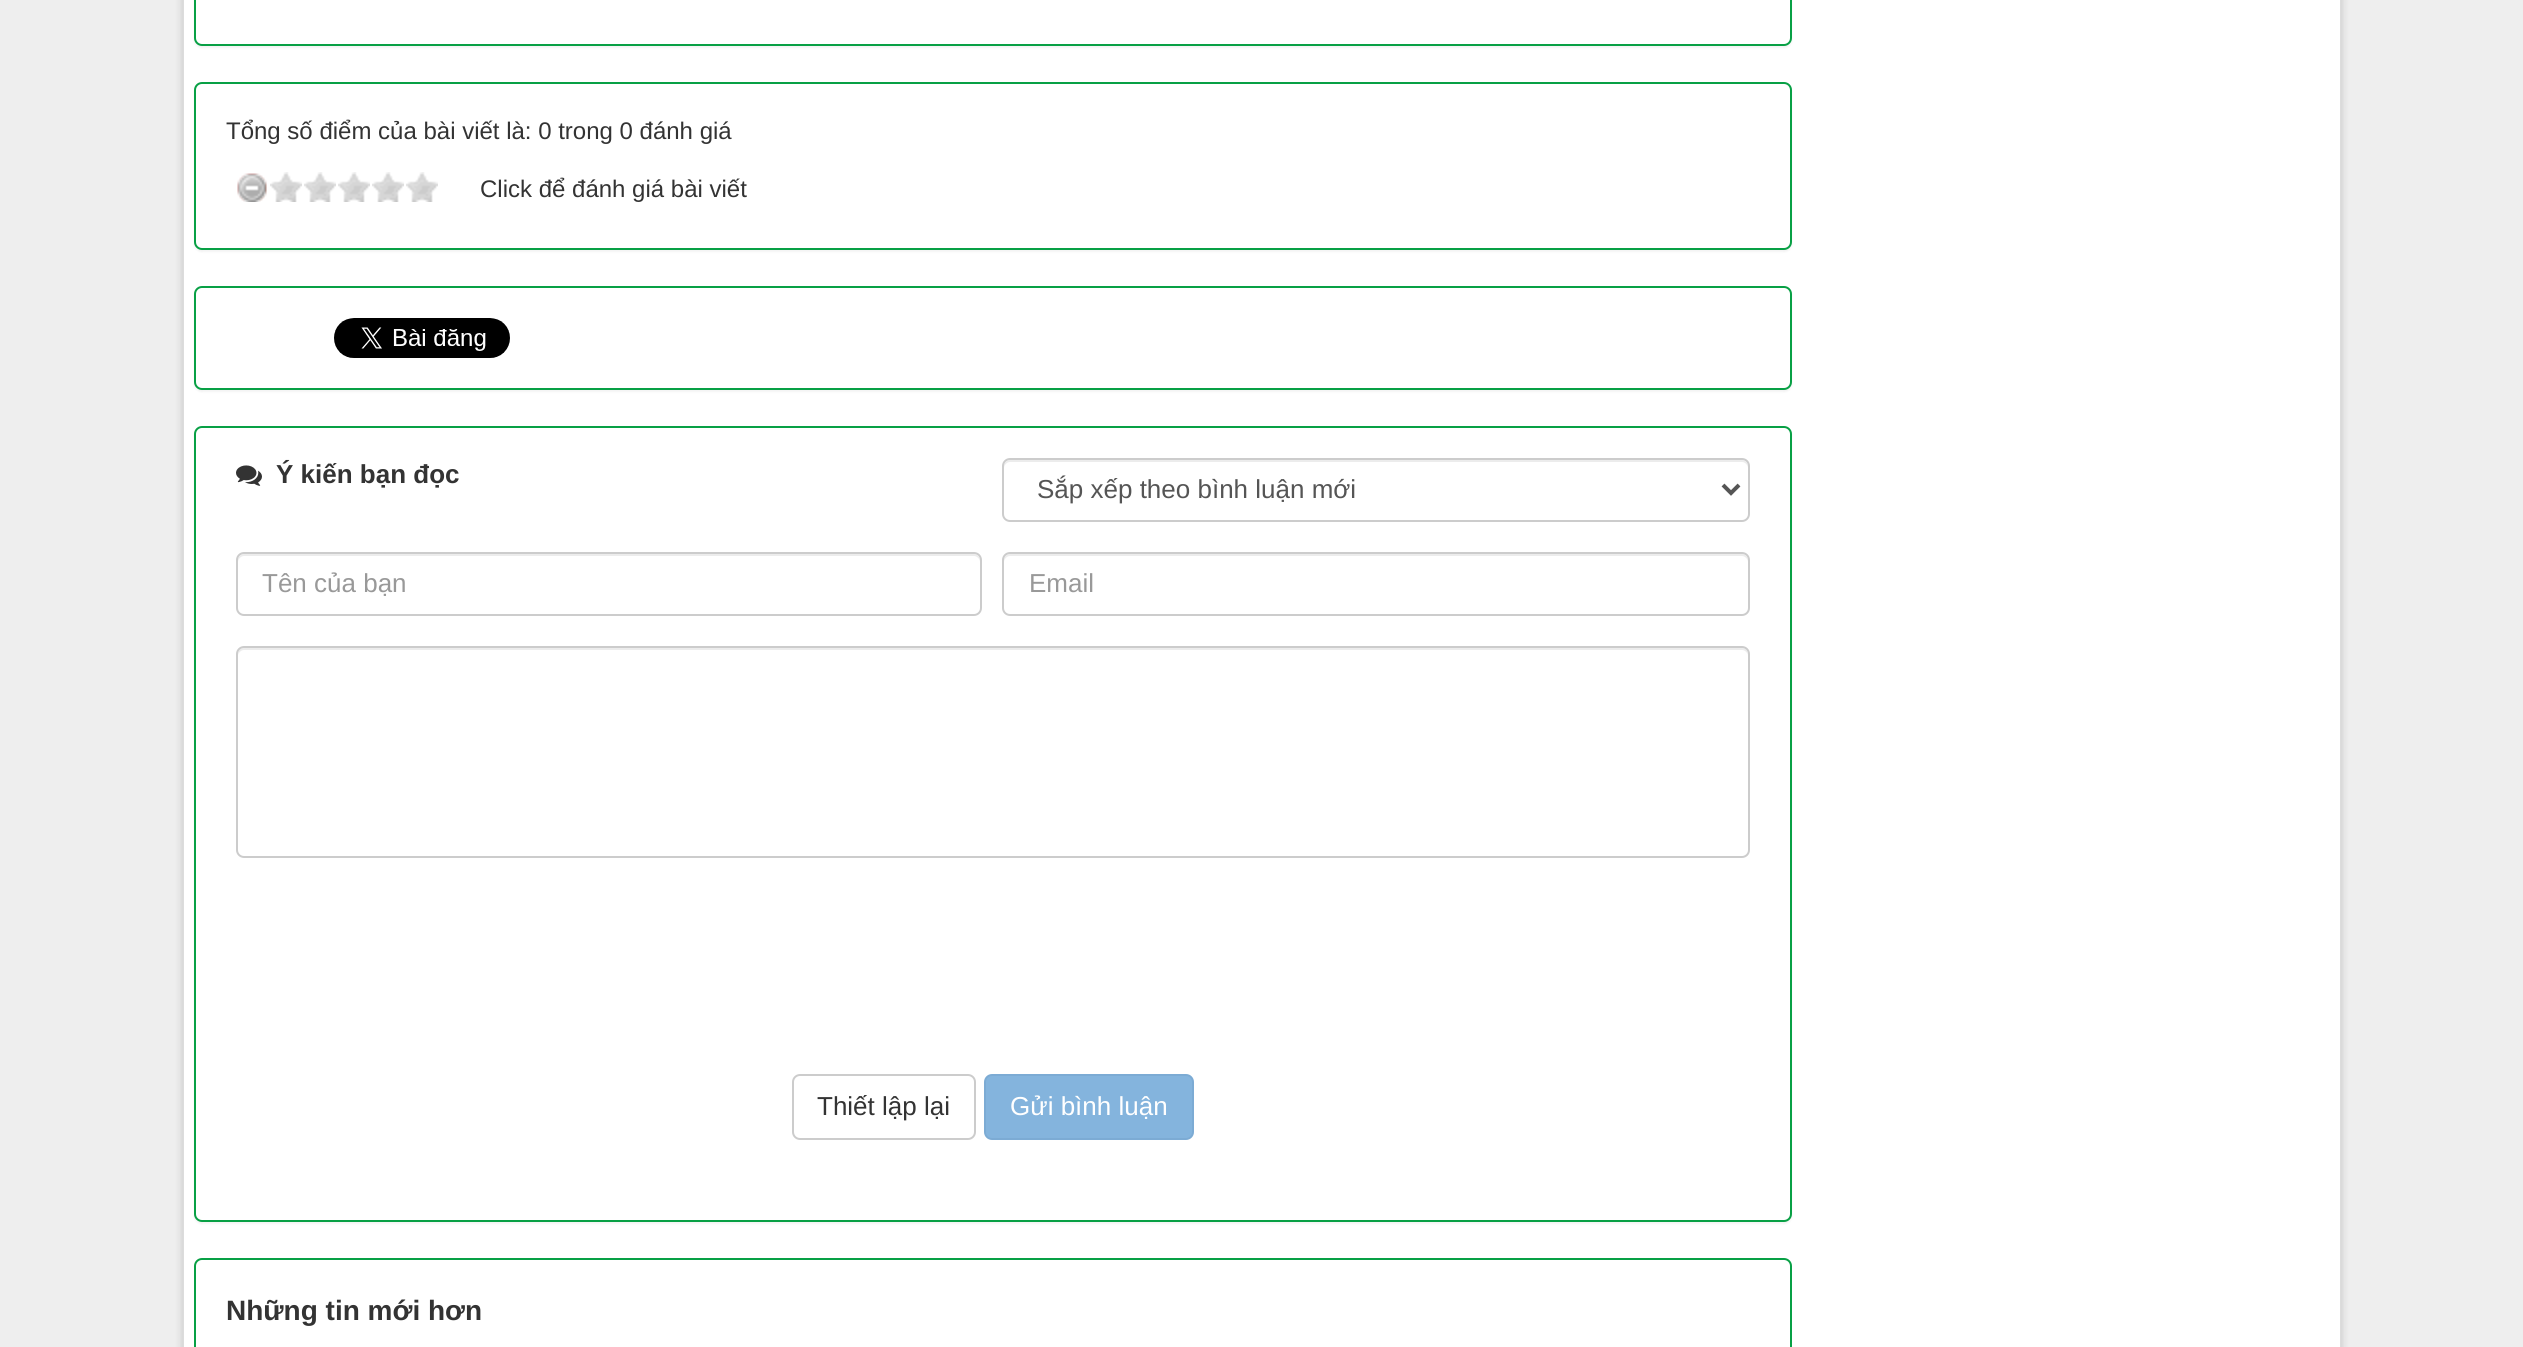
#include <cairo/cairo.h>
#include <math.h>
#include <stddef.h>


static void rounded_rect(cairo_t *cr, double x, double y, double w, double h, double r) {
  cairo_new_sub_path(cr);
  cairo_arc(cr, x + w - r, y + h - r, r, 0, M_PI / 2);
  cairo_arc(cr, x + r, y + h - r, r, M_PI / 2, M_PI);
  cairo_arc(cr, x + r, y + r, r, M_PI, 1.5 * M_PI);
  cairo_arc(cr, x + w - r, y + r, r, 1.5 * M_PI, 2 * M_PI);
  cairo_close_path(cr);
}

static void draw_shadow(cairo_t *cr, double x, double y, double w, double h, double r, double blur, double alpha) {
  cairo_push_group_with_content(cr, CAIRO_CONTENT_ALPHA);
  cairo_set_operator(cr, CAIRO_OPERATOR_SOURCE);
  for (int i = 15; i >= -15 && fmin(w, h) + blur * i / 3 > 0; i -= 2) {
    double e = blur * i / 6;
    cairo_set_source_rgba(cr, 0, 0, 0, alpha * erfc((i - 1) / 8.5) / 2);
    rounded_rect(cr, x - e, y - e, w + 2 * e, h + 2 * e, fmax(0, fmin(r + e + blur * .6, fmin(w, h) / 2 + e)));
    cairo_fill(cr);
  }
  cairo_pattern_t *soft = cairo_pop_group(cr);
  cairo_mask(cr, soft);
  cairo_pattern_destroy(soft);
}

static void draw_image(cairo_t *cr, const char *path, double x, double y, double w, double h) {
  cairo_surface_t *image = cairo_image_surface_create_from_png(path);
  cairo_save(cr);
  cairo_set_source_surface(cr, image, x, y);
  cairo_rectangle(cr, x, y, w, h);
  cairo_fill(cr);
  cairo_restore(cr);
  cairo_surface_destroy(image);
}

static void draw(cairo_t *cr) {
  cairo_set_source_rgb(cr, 238 / 255.0, 238 / 255.0, 238 / 255.0);
  cairo_paint(cr);
  cairo_set_source_rgb(cr, 0, 0, 0);
  draw_shadow(cr, 182, -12, 2160, 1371, 0, 4, 0.15);
  cairo_set_source_rgb(cr, 1, 1, 1);
  cairo_rectangle(cr, 184, 0, 2156, 1347);
  cairo_fill(cr);
  cairo_set_source_rgb(cr, 220 / 255.0, 220 / 255.0, 220 / 255.0);
  cairo_rectangle(cr, 2340, 0, 1, 1347);
  cairo_fill(cr);
  cairo_rectangle(cr, 183, 0, 1, 1347);
  cairo_fill(cr);
  cairo_set_source_rgb(cr, 0, 0, 0);
  draw_shadow(cr, 194, -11, 1598, 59, 8, 1, 0.05);
  cairo_set_source_rgb(cr, 1, 1, 1);
  rounded_rect(cr, 195, -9, 1596, 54, 7);
  cairo_fill_preserve(cr);
  cairo_set_source_rgb(cr, 8 / 255.0, 160 / 255.0, 69 / 255.0);
  cairo_stroke(cr);
  cairo_set_source_rgb(cr, 0, 0, 0);
  draw_shadow(cr, 194, 84, 1598, 168, 8, 1, 0.05);
  cairo_set_source_rgb(cr, 1, 1, 1);
  rounded_rect(cr, 195, 83, 1596, 166, 7);
  cairo_fill_preserve(cr);
  cairo_set_source_rgb(cr, 8 / 255.0, 160 / 255.0, 69 / 255.0);
  cairo_stroke(cr);
  draw_image(cr, "images/1.png", 237, 173, 30, 29);
  draw_image(cr, "images/2.png", 237, 173, 30, 29);
  draw_image(cr, "images/3.png", 270, 172, 32, 30);
  draw_image(cr, "images/3.png", 304, 172, 32, 30);
  draw_image(cr, "images/3.png", 338, 172, 32, 30);
  draw_image(cr, "images/3.png", 372, 172, 32, 30);
  draw_image(cr, "images/3.png", 406, 172, 32, 30);
  cairo_set_source_rgb(cr, 0, 0, 0);
  draw_shadow(cr, 194, 288, 1598, 104, 8, 1, 0.05);
  cairo_set_source_rgb(cr, 1, 1, 1);
  rounded_rect(cr, 195, 287, 1596, 102, 7);
  cairo_fill_preserve(cr);
  cairo_set_source_rgb(cr, 8 / 255.0, 160 / 255.0, 69 / 255.0);
  cairo_stroke(cr);
  draw_image(cr, "images/4.png", 334, 318, 176, 40);
  cairo_set_source_rgb(cr, 0, 0, 0);
  draw_shadow(cr, 194, 428, 1598, 796, 8, 1, 0.05);
  cairo_set_source_rgb(cr, 1, 1, 1);
  rounded_rect(cr, 195, 427, 1596, 794, 7);
  cairo_fill_preserve(cr);
  cairo_set_source_rgb(cr, 8 / 255.0, 160 / 255.0, 69 / 255.0);
  cairo_stroke(cr);
  draw_image(cr, "images/5.png", 236, 465, 26, 21);
  cairo_set_source_rgb(cr, 236 / 255.0, 236 / 255.0, 236 / 255.0);
  cairo_new_path(cr);
  cairo_move_to(cr, 1010, 462);
  cairo_line_to(cr, 1742, 462);
  cairo_curve_to(cr, 1745, 462, 1748, 465, 1748, 468);
  cairo_line_to(cr, 1748, 466);
  cairo_curve_to(cr, 1748, 463, 1745, 460, 1742, 460);
  cairo_line_to(cr, 1010, 460);
  cairo_curve_to(cr, 1007, 460, 1004, 463, 1004, 466);
  cairo_line_to(cr, 1004, 468);
  cairo_curve_to(cr, 1004, 465, 1007, 462, 1010, 462);
  cairo_close_path(cr);
  cairo_fill(cr);
  rounded_rect(cr, 1003, 459, 746, 62, 7);
  cairo_set_source_rgb(cr, 204 / 255.0, 204 / 255.0, 204 / 255.0);
  cairo_stroke(cr);
  cairo_new_path(cr);
  cairo_move_to(cr, 1723, 485);
  cairo_line_to(cr, 1731, 493);
  cairo_line_to(cr, 1739, 485);
  cairo_set_source_rgb(cr, 85 / 255.0, 85 / 255.0, 85 / 255.0);
  cairo_set_line_width(cr, 4);
  cairo_stroke(cr);
  cairo_set_source_rgb(cr, 236 / 255.0, 236 / 255.0, 236 / 255.0);
  cairo_new_path(cr);
  cairo_move_to(cr, 244, 556);
  cairo_line_to(cr, 974, 556);
  cairo_curve_to(cr, 977, 556, 980, 559, 980, 562);
  cairo_line_to(cr, 980, 560);
  cairo_curve_to(cr, 980, 557, 977, 554, 974, 554);
  cairo_line_to(cr, 244, 554);
  cairo_curve_to(cr, 241, 554, 238, 557, 238, 560);
  cairo_line_to(cr, 238, 562);
  cairo_curve_to(cr, 238, 559, 241, 556, 244, 556);
  cairo_close_path(cr);
  cairo_fill(cr);
  rounded_rect(cr, 237, 553, 744, 62, 7);
  cairo_set_source_rgb(cr, 204 / 255.0, 204 / 255.0, 204 / 255.0);
  cairo_set_line_width(cr, 2);
  cairo_stroke(cr);
  cairo_set_source_rgb(cr, 236 / 255.0, 236 / 255.0, 236 / 255.0);
  cairo_new_path(cr);
  cairo_move_to(cr, 1010, 556);
  cairo_line_to(cr, 1742, 556);
  cairo_curve_to(cr, 1745, 556, 1748, 559, 1748, 562);
  cairo_line_to(cr, 1748, 560);
  cairo_curve_to(cr, 1748, 557, 1745, 554, 1742, 554);
  cairo_line_to(cr, 1010, 554);
  cairo_curve_to(cr, 1007, 554, 1004, 557, 1004, 560);
  cairo_line_to(cr, 1004, 562);
  cairo_curve_to(cr, 1004, 559, 1007, 556, 1010, 556);
  cairo_close_path(cr);
  cairo_fill(cr);
  rounded_rect(cr, 1003, 553, 746, 62, 7);
  cairo_set_source_rgb(cr, 204 / 255.0, 204 / 255.0, 204 / 255.0);
  cairo_stroke(cr);
  cairo_set_source_rgb(cr, 236 / 255.0, 236 / 255.0, 236 / 255.0);
  cairo_new_path(cr);
  cairo_move_to(cr, 244, 650);
  cairo_line_to(cr, 1742, 650);
  cairo_curve_to(cr, 1745, 650, 1748, 653, 1748, 656);
  cairo_curve_to(cr, 1748, 652, 1747, 648, 1742, 648);
  cairo_line_to(cr, 244, 648);
  cairo_curve_to(cr, 239, 648, 238, 652, 238, 656);
  cairo_curve_to(cr, 238, 653, 241, 650, 244, 650);
  cairo_close_path(cr);
  cairo_fill(cr);
  rounded_rect(cr, 237, 647, 1512, 210, 7);
  cairo_set_source_rgb(cr, 204 / 255.0, 204 / 255.0, 204 / 255.0);
  cairo_stroke(cr);
  rounded_rect(cr, 793, 1075, 182, 64, 7);
  cairo_stroke(cr);
  cairo_set_source_rgb(cr, 132 / 255.0, 180 / 255.0, 221 / 255.0);
  rounded_rect(cr, 985, 1075, 208, 64, 7);
  cairo_fill_preserve(cr);
  cairo_set_source_rgb(cr, 124 / 255.0, 171 / 255.0, 212 / 255.0);
  cairo_stroke(cr);
  rounded_rect(cr, 195, 1259, 1596, 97, 7);
  cairo_set_source_rgb(cr, 8 / 255.0, 160 / 255.0, 69 / 255.0);
  cairo_stroke(cr);
  cairo_select_font_face(cr, "Liberation Sans", CAIRO_FONT_SLANT_NORMAL, CAIRO_FONT_WEIGHT_NORMAL);
  cairo_set_font_size(cr, 24);
  cairo_set_source_rgb(cr, 51 / 255.0, 51 / 255.0, 51 / 255.0);
  cairo_move_to(cr, 226, 139);
  cairo_show_text(cr, "Tổng số điểm của bài viết là: 0 trong 0 đánh giá");
  cairo_move_to(cr, 480, 197);
  cairo_show_text(cr, "Click để đánh giá bài viết");
  cairo_select_font_face(cr, "Liberation Sans", CAIRO_FONT_SLANT_NORMAL, CAIRO_FONT_WEIGHT_BOLD);
  cairo_set_font_size(cr, 26);
  cairo_move_to(cr, 276, 483);
  cairo_show_text(cr, "Ý kiến bạn đọc");
  cairo_select_font_face(cr, "Liberation Sans", CAIRO_FONT_SLANT_NORMAL, CAIRO_FONT_WEIGHT_NORMAL);
  cairo_set_source_rgb(cr, 85 / 255.0, 85 / 255.0, 85 / 255.0);
  cairo_move_to(cr, 1037, 498);
  cairo_show_text(cr, "Sắp xếp theo bình luận mới");
  cairo_set_source_rgb(cr, 153 / 255.0, 153 / 255.0, 153 / 255.0);
  cairo_move_to(cr, 262, 592);
  cairo_show_text(cr, "Tên của bạn");
  cairo_move_to(cr, 1029, 592);
  cairo_show_text(cr, "Email");
  cairo_set_source_rgb(cr, 51 / 255.0, 51 / 255.0, 51 / 255.0);
  cairo_move_to(cr, 817, 1115);
  cairo_show_text(cr, "Thiết lập lại");
  cairo_set_source_rgb(cr, 1, 1, 1);
  cairo_move_to(cr, 1010, 1115);
  cairo_show_text(cr, "Gửi bình luận");
  cairo_select_font_face(cr, "Liberation Sans", CAIRO_FONT_SLANT_NORMAL, CAIRO_FONT_WEIGHT_BOLD);
  cairo_set_font_size(cr, 28);
  cairo_set_source_rgb(cr, 51 / 255.0, 51 / 255.0, 51 / 255.0);
  cairo_move_to(cr, 226, 1320);
  cairo_show_text(cr, "Những tin mới hơn");
}

int main(void) {
  cairo_surface_t *surface = cairo_image_surface_create(CAIRO_FORMAT_RGB24, 2523, 1347);
  cairo_t *cr = cairo_create(surface);
  cairo_font_options_t *options = cairo_font_options_create();
  cairo_font_options_set_hint_metrics(options, CAIRO_HINT_METRICS_OFF);
  cairo_font_options_set_hint_style(options, CAIRO_HINT_STYLE_NONE);
  cairo_set_font_options(cr, options);
  cairo_set_miter_limit(cr, 4);
  draw(cr);
  cairo_surface_write_to_png(surface, "out.png");
  cairo_font_options_destroy(options);
  cairo_destroy(cr);
  cairo_surface_destroy(surface);
  return 0;
}
